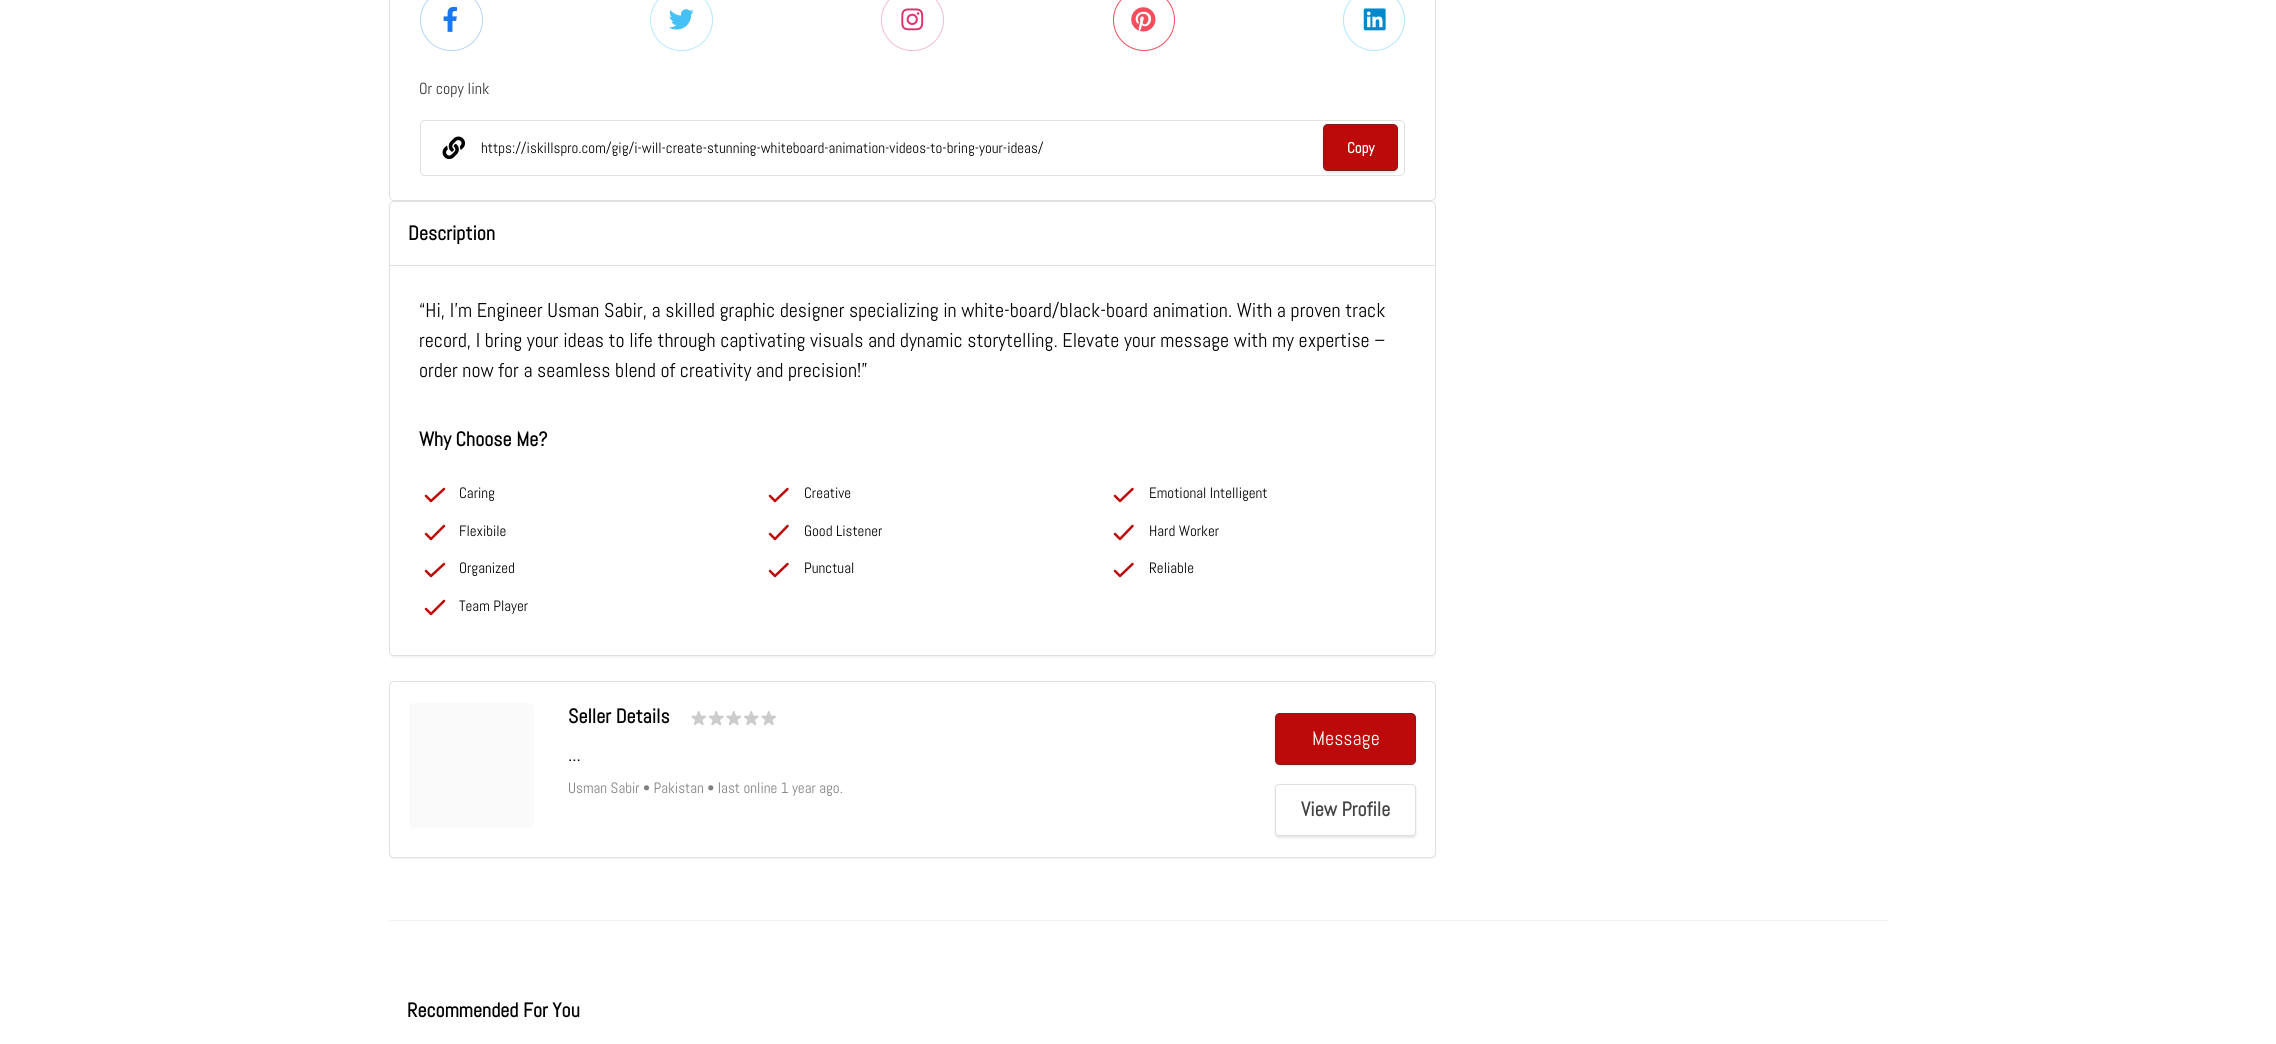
#include <cairo/cairo.h>
#include <math.h>
#include <stddef.h>


static void rounded_rect(cairo_t *cr, double x, double y, double w, double h, double r) {
  cairo_new_sub_path(cr);
  cairo_arc(cr, x + w - r, y + h - r, r, 0, M_PI / 2);
  cairo_arc(cr, x + r, y + h - r, r, M_PI / 2, M_PI);
  cairo_arc(cr, x + r, y + r, r, M_PI, 1.5 * M_PI);
  cairo_arc(cr, x + w - r, y + r, r, 1.5 * M_PI, 2 * M_PI);
  cairo_close_path(cr);
}

static void draw_shadow(cairo_t *cr, double x, double y, double w, double h, double r, double blur, double alpha) {
  cairo_push_group_with_content(cr, CAIRO_CONTENT_ALPHA);
  cairo_set_operator(cr, CAIRO_OPERATOR_SOURCE);
  for (int i = 15; i >= -15 && fmin(w, h) + blur * i / 3 > 0; i -= 2) {
    double e = blur * i / 6;
    cairo_set_source_rgba(cr, 0, 0, 0, alpha * erfc((i - 1) / 8.5) / 2);
    rounded_rect(cr, x - e, y - e, w + 2 * e, h + 2 * e, fmax(0, fmin(r + e + blur * .6, fmin(w, h) / 2 + e)));
    cairo_fill(cr);
  }
  cairo_pattern_t *soft = cairo_pop_group(cr);
  cairo_mask(cr, soft);
  cairo_pattern_destroy(soft);
}

static void draw_image(cairo_t *cr, const char *path, double x, double y, double w, double h) {
  cairo_surface_t *image = cairo_image_surface_create_from_png(path);
  cairo_save(cr);
  cairo_set_source_surface(cr, image, x, y);
  cairo_rectangle(cr, x, y, w, h);
  cairo_fill(cr);
  cairo_restore(cr);
  cairo_surface_destroy(image);
}

static void draw(cairo_t *cr) {
  cairo_set_source_rgb(cr, 1, 1, 1);
  cairo_paint(cr);
  rounded_rect(cr, 389.5, -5.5, 1046, 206, 4.5);
  cairo_set_source_rgb(cr, 224 / 255.0, 224 / 255.0, 224 / 255.0);
  cairo_set_line_width(cr, 1);
  cairo_stroke(cr);
  rounded_rect(cr, 420.5, -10.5, 62, 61, 30.5);
  cairo_set_source_rgb(cr, 183 / 255.0, 212 / 255.0, 251 / 255.0);
  cairo_stroke(cr);
  draw_image(cr, "images/1.png", 443, 6, 14, 26);
  rounded_rect(cr, 650.5, -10.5, 62, 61, 30.5);
  cairo_set_source_rgb(cr, 182 / 255.0, 231 / 255.0, 252 / 255.0);
  cairo_stroke(cr);
  draw_image(cr, "images/2.png", 669, 9, 25, 21);
  rounded_rect(cr, 881.5, -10.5, 62, 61, 30.5);
  cairo_set_source_rgb(cr, 245 / 255.0, 188 / 255.0, 207 / 255.0);
  cairo_stroke(cr);
  draw_image(cr, "images/3.png", 901, 8, 23, 23);
  cairo_arc(cr, 1144, 20, 30.5, 0, 2 * M_PI);
  cairo_set_source_rgb(cr, 246 / 255.0, 76 / 255.0, 91 / 255.0);
  cairo_stroke(cr);
  draw_image(cr, "images/4.png", 1131, 7, 25, 25);
  cairo_arc(cr, 1374, 20, 30.5, 0, 2 * M_PI);
  cairo_set_source_rgb(cr, 179 / 255.0, 230 / 255.0, 1);
  cairo_stroke(cr);
  draw_image(cr, "images/5.png", 1363, 8, 23, 23);
  rounded_rect(cr, 420.5, 120.5, 984, 55, 4.5);
  cairo_set_source_rgb(cr, 225 / 255.0, 225 / 255.0, 225 / 255.0);
  cairo_stroke(cr);
  draw_image(cr, "images/6.png", 442, 136, 23, 24);
  cairo_set_source_rgb(cr, 0, 0, 0);
  draw_shadow(cr, 1323, 125, 75, 48, 5, 1, 0.1);
  cairo_set_source_rgb(cr, 188 / 255.0, 10 / 255.0, 10 / 255.0);
  rounded_rect(cr, 1323, 124, 75, 47, 5);
  cairo_fill(cr);
  rounded_rect(cr, 1323.5, 124.5, 74, 46, 4.5);
  cairo_set_source_rgba(cr, 54 / 255.0, 54 / 255.0, 54 / 255.0, 0.49);
  cairo_stroke(cr);
  cairo_set_source_rgb(cr, 0, 0, 0);
  draw_shadow(cr, 389, 203, 1047, 455, 5, 0.5, 0.04);
  cairo_set_source_rgb(cr, 1, 1, 1);
  rounded_rect(cr, 389.5, 201.5, 1046, 454, 4.5);
  cairo_fill_preserve(cr);
  cairo_set_source_rgb(cr, 224 / 255.0, 224 / 255.0, 224 / 255.0);
  cairo_stroke(cr);
  cairo_rectangle(cr, 390, 265, 1045, 1);
  cairo_fill(cr);
  cairo_new_path(cr);
  cairo_move_to(cr, 426, 496);
  cairo_line_to(cr, 431, 501);
  cairo_line_to(cr, 444, 489);
  cairo_set_source_rgb(cr, 188 / 255.0, 10 / 255.0, 10 / 255.0);
  cairo_set_line_width(cr, 2.5);
  cairo_set_line_cap(cr, CAIRO_LINE_CAP_ROUND);
  cairo_set_line_join(cr, CAIRO_LINE_JOIN_ROUND);
  cairo_stroke(cr);
  cairo_new_path(cr);
  cairo_move_to(cr, 770, 496);
  cairo_line_to(cr, 775, 501);
  cairo_line_to(cr, 787.5, 489);
  cairo_stroke(cr);
  cairo_new_path(cr);
  cairo_move_to(cr, 1115, 496);
  cairo_line_to(cr, 1120, 501);
  cairo_line_to(cr, 1132.5, 489);
  cairo_stroke(cr);
  cairo_new_path(cr);
  cairo_move_to(cr, 426, 534);
  cairo_line_to(cr, 431, 539);
  cairo_line_to(cr, 444, 526);
  cairo_stroke(cr);
  cairo_new_path(cr);
  cairo_move_to(cr, 770, 534);
  cairo_line_to(cr, 775, 539);
  cairo_line_to(cr, 787.5, 526);
  cairo_stroke(cr);
  cairo_new_path(cr);
  cairo_move_to(cr, 1115, 534);
  cairo_line_to(cr, 1120, 539);
  cairo_line_to(cr, 1132.5, 526);
  cairo_stroke(cr);
  cairo_new_path(cr);
  cairo_move_to(cr, 426, 571);
  cairo_line_to(cr, 431, 576);
  cairo_line_to(cr, 444, 564);
  cairo_stroke(cr);
  cairo_new_path(cr);
  cairo_move_to(cr, 770, 571);
  cairo_line_to(cr, 775, 576);
  cairo_line_to(cr, 787.5, 564);
  cairo_stroke(cr);
  cairo_new_path(cr);
  cairo_move_to(cr, 1115, 571);
  cairo_line_to(cr, 1120, 576);
  cairo_line_to(cr, 1132.5, 564);
  cairo_stroke(cr);
  cairo_new_path(cr);
  cairo_move_to(cr, 426, 609);
  cairo_line_to(cr, 431, 614);
  cairo_line_to(cr, 444, 601);
  cairo_stroke(cr);
  cairo_set_source_rgb(cr, 0, 0, 0);
  draw_shadow(cr, 389, 683, 1047, 176, 5, 0.5, 0.04);
  cairo_set_source_rgb(cr, 1, 1, 1);
  rounded_rect(cr, 389.5, 681.5, 1046, 176, 4.5);
  cairo_fill_preserve(cr);
  cairo_set_source_rgb(cr, 224 / 255.0, 224 / 255.0, 224 / 255.0);
  cairo_set_line_width(cr, 1);
  cairo_set_line_cap(cr, CAIRO_LINE_CAP_BUTT);
  cairo_set_line_join(cr, CAIRO_LINE_JOIN_MITER);
  cairo_stroke(cr);
  cairo_set_source_rgb(cr, 250 / 255.0, 250 / 255.0, 251 / 255.0);
  rounded_rect(cr, 409, 703, 125, 125, 5);
  cairo_fill(cr);
  draw_image(cr, "images/7.png", 691, 711, 15, 15);
  draw_image(cr, "images/8.png", 709, 711, 15, 15);
  draw_image(cr, "images/7.png", 726, 711, 15, 15);
  draw_image(cr, "images/8.png", 744, 711, 15, 15);
  draw_image(cr, "images/7.png", 761, 711, 15, 15);
  cairo_set_source_rgb(cr, 0, 0, 0);
  draw_shadow(cr, 1275, 714, 141, 52, 5, 1, 0.1);
  cairo_set_source_rgb(cr, 188 / 255.0, 10 / 255.0, 10 / 255.0);
  rounded_rect(cr, 1275, 713, 141, 52, 5);
  cairo_fill(cr);
  rounded_rect(cr, 1275.5, 713.5, 140, 51, 4.5);
  cairo_set_source_rgba(cr, 54 / 255.0, 54 / 255.0, 54 / 255.0, 0.49);
  cairo_stroke(cr);
  cairo_set_source_rgb(cr, 0, 0, 0);
  draw_shadow(cr, 1275, 785, 141, 53, 4, 1, 0.1);
  cairo_set_source_rgb(cr, 1, 1, 1);
  rounded_rect(cr, 1275.5, 784.5, 140, 51, 3.5);
  cairo_fill_preserve(cr);
  cairo_set_source_rgb(cr, 224 / 255.0, 224 / 255.0, 224 / 255.0);
  cairo_stroke(cr);
  cairo_set_source_rgb(cr, 242 / 255.0, 242 / 255.0, 242 / 255.0);
  cairo_rectangle(cr, 389, 920, 1500, 1);
  cairo_fill(cr);
  cairo_select_font_face(cr, "Abel", CAIRO_FONT_SLANT_NORMAL, CAIRO_FONT_WEIGHT_NORMAL);
  cairo_set_font_size(cr, 16);
  cairo_set_source_rgb(cr, 51 / 255.0, 51 / 255.0, 51 / 255.0);
  cairo_move_to(cr, 419, 94);
  cairo_show_text(cr, "Or copy link");
  cairo_set_font_size(cr, 15);
  cairo_set_source_rgb(cr, 0, 0, 0);
  cairo_move_to(cr, 481, 153);
  cairo_show_text(cr, "https://iskillspro.com/gig/i-will-create-stunning-whiteboard-animation-videos-to-bring-your-ideas/");
  cairo_select_font_face(cr, "Abel", CAIRO_FONT_SLANT_NORMAL, CAIRO_FONT_WEIGHT_BOLD);
  cairo_set_source_rgb(cr, 1, 1, 1);
  cairo_move_to(cr, 1347, 153);
  cairo_show_text(cr, "Copy");
  cairo_set_font_size(cr, 20);
  cairo_set_source_rgb(cr, 0, 0, 0);
  cairo_move_to(cr, 408, 240);
  cairo_show_text(cr, "Description");
  cairo_select_font_face(cr, "Abel", CAIRO_FONT_SLANT_NORMAL, CAIRO_FONT_WEIGHT_NORMAL);
  cairo_move_to(cr, 419, 317);
  cairo_show_text(cr, "“Hi, I’m Engineer Usman Sabir, a skilled graphic designer specializing in white-board/black-board animation. With a proven track");
  cairo_move_to(cr, 419, 347);
  cairo_show_text(cr, "record, I bring your ideas to life through captivating visuals and dynamic storytelling. Elevate your message with my expertise –");
  cairo_move_to(cr, 419, 377);
  cairo_show_text(cr, "order now for a seamless blend of creativity and precision!”");
  cairo_select_font_face(cr, "Abel", CAIRO_FONT_SLANT_NORMAL, CAIRO_FONT_WEIGHT_BOLD);
  cairo_move_to(cr, 419, 446);
  cairo_show_text(cr, "Why Choose Me?");
  cairo_select_font_face(cr, "Abel", CAIRO_FONT_SLANT_NORMAL, CAIRO_FONT_WEIGHT_NORMAL);
  cairo_set_font_size(cr, 15);
  cairo_move_to(cr, 459, 498);
  cairo_show_text(cr, "Caring");
  cairo_move_to(cr, 804, 498);
  cairo_show_text(cr, "Creative");
  cairo_move_to(cr, 1149, 498);
  cairo_show_text(cr, "Emotional Intelligent");
  cairo_move_to(cr, 459, 536);
  cairo_show_text(cr, "Flexibile");
  cairo_move_to(cr, 804, 536);
  cairo_show_text(cr, "Good Listener");
  cairo_move_to(cr, 1149, 536);
  cairo_show_text(cr, "Hard Worker");
  cairo_move_to(cr, 459, 573);
  cairo_show_text(cr, "Organized");
  cairo_move_to(cr, 804, 573);
  cairo_show_text(cr, "Punctual");
  cairo_move_to(cr, 1149, 573);
  cairo_show_text(cr, "Reliable");
  cairo_move_to(cr, 459, 611);
  cairo_show_text(cr, "Team Player");
  cairo_select_font_face(cr, "Abel", CAIRO_FONT_SLANT_NORMAL, CAIRO_FONT_WEIGHT_BOLD);
  cairo_set_font_size(cr, 20);
  cairo_move_to(cr, 568, 723);
  cairo_show_text(cr, "Seller Details");
  cairo_select_font_face(cr, "Abel", CAIRO_FONT_SLANT_NORMAL, CAIRO_FONT_WEIGHT_NORMAL);
  cairo_move_to(cr, 568, 761);
  cairo_show_text(cr, "...");
  cairo_set_font_size(cr, 15);
  cairo_set_source_rgb(cr, 128 / 255.0, 128 / 255.0, 128 / 255.0);
  cairo_move_to(cr, 568, 793);
  cairo_show_text(cr, "Usman Sabir • Pakistan • last online 1 year ago.");
  cairo_set_font_size(cr, 20);
  cairo_set_source_rgb(cr, 1, 1, 1);
  cairo_move_to(cr, 1312, 745);
  cairo_show_text(cr, "Message");
  cairo_select_font_face(cr, "Abel", CAIRO_FONT_SLANT_NORMAL, CAIRO_FONT_WEIGHT_BOLD);
  cairo_set_source_rgb(cr, 68 / 255.0, 68 / 255.0, 68 / 255.0);
  cairo_move_to(cr, 1301, 816);
  cairo_show_text(cr, "View Profile");
  cairo_set_source_rgb(cr, 0, 0, 0);
  cairo_move_to(cr, 407, 1017);
  cairo_show_text(cr, "Recommended For You");
}

int main(void) {
  cairo_surface_t *surface = cairo_image_surface_create(CAIRO_FORMAT_RGB24, 2276, 1044);
  cairo_t *cr = cairo_create(surface);
  cairo_font_options_t *options = cairo_font_options_create();
  cairo_font_options_set_hint_metrics(options, CAIRO_HINT_METRICS_OFF);
  cairo_font_options_set_hint_style(options, CAIRO_HINT_STYLE_NONE);
  cairo_set_font_options(cr, options);
  cairo_set_miter_limit(cr, 4);
  draw(cr);
  cairo_surface_write_to_png(surface, "out.png");
  cairo_font_options_destroy(options);
  cairo_destroy(cr);
  cairo_surface_destroy(surface);
  return 0;
}
